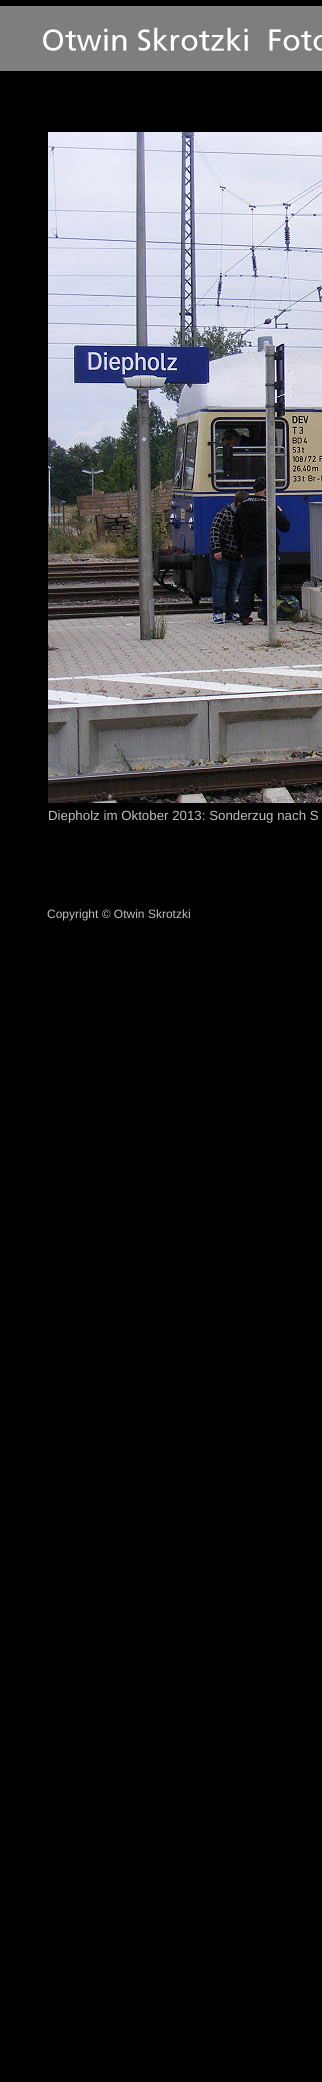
#include <cairo/cairo.h>
#include <math.h>
#include <stddef.h>


static void draw_image(cairo_t *cr, const char *path, double x, double y, double w, double h) {
  cairo_surface_t *image = cairo_image_surface_create_from_png(path);
  cairo_save(cr);
  cairo_set_source_surface(cr, image, x, y);
  cairo_rectangle(cr, x, y, w, h);
  cairo_fill(cr);
  cairo_restore(cr);
  cairo_surface_destroy(image);
}

static void draw(cairo_t *cr) {
  cairo_set_source_rgb(cr, 0, 0, 0);
  cairo_paint(cr);
  cairo_set_source_rgb(cr, 126 / 255.0, 126 / 255.0, 126 / 255.0);
  cairo_rectangle(cr, 0, 6, 14, 65);
  cairo_fill(cr);
  draw_image(cr, "images/1.png", 14, 6, 308, 65);
  draw_image(cr, "images/2.png", 48, 132, 274, 671);
  cairo_select_font_face(cr, "Liberation Sans", CAIRO_FONT_SLANT_NORMAL, CAIRO_FONT_WEIGHT_NORMAL);
  cairo_set_font_size(cr, 13.3);
  cairo_set_source_rgb(cr, 192 / 255.0, 192 / 255.0, 192 / 255.0);
  cairo_move_to(cr, 48, 820);
  cairo_show_text(cr, "Diepholz im Oktober 2013: Sonderzug nach S");
  cairo_set_font_size(cr, 12);
  cairo_move_to(cr, 47, 918);
  cairo_show_text(cr, "Copyright © Otwin Skrotzki");
}

int main(void) {
  cairo_surface_t *surface = cairo_image_surface_create(CAIRO_FORMAT_RGB24, 322, 2082);
  cairo_t *cr = cairo_create(surface);
  cairo_font_options_t *options = cairo_font_options_create();
  cairo_font_options_set_hint_metrics(options, CAIRO_HINT_METRICS_OFF);
  cairo_font_options_set_hint_style(options, CAIRO_HINT_STYLE_NONE);
  cairo_set_font_options(cr, options);
  cairo_set_miter_limit(cr, 4);
  draw(cr);
  cairo_surface_write_to_png(surface, "out.png");
  cairo_font_options_destroy(options);
  cairo_destroy(cr);
  cairo_surface_destroy(surface);
  return 0;
}
